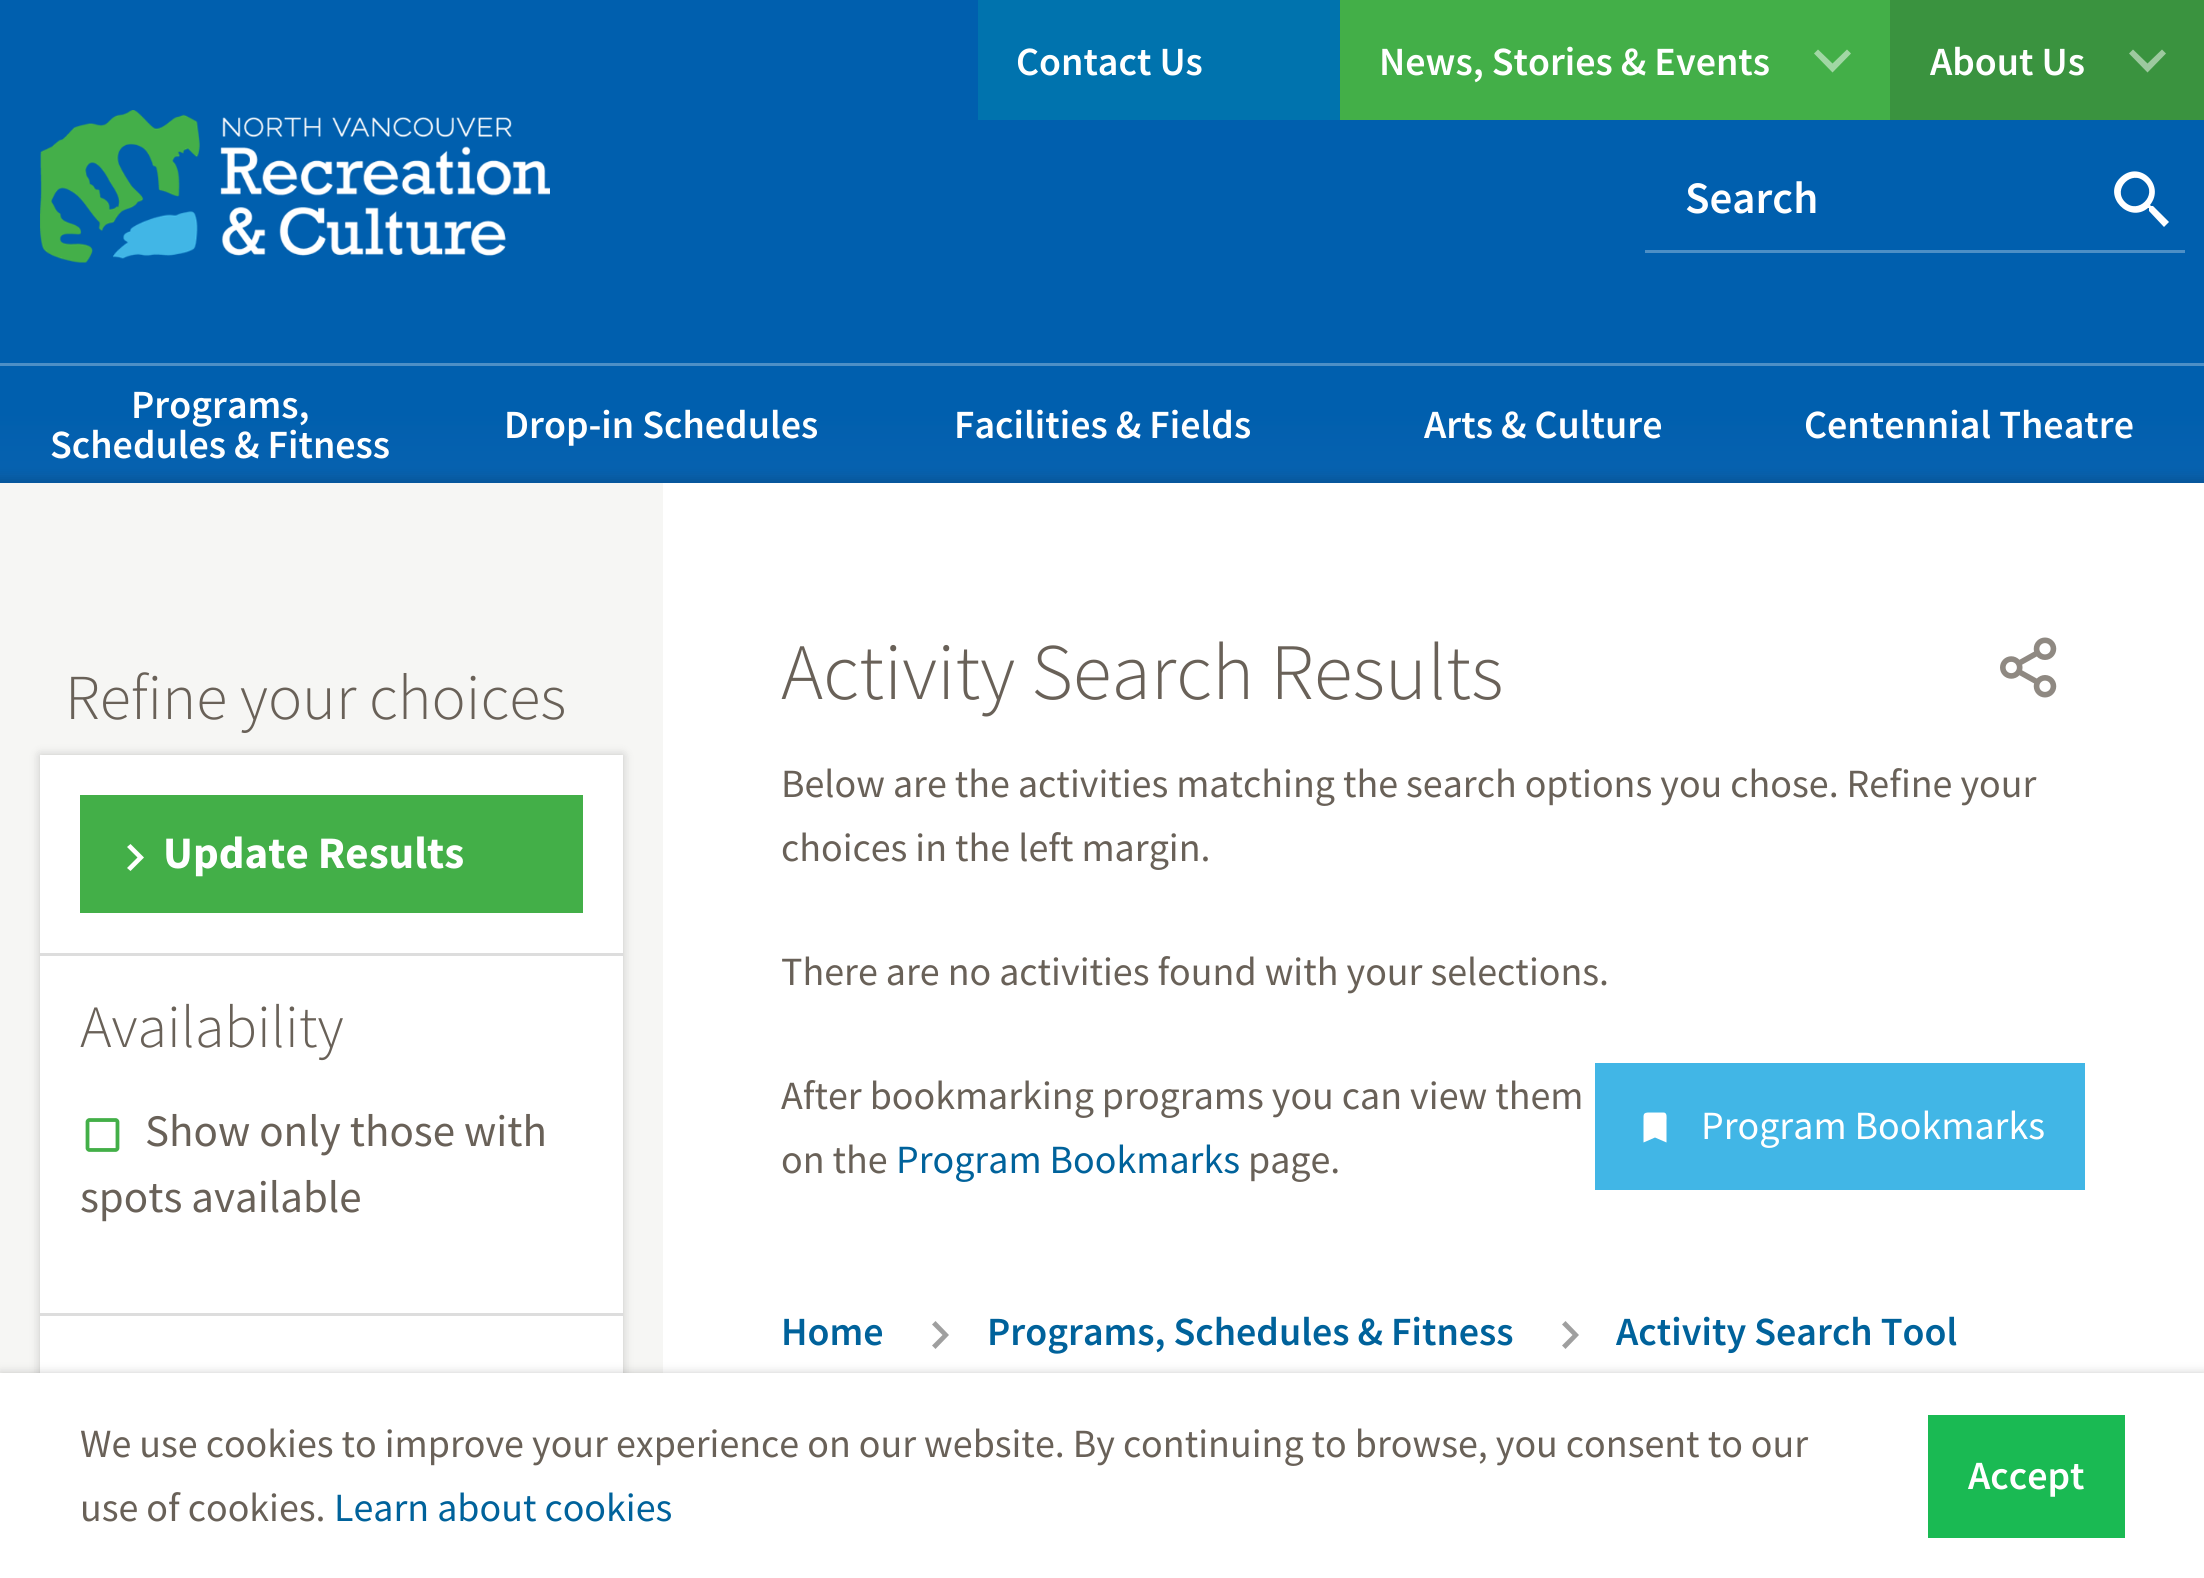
#include <cairo/cairo.h>
#include <math.h>
#include <stddef.h>


static void rounded_rect(cairo_t *cr, double x, double y, double w, double h, double r) {
  cairo_new_sub_path(cr);
  cairo_arc(cr, x + w - r, y + h - r, r, 0, M_PI / 2);
  cairo_arc(cr, x + r, y + h - r, r, M_PI / 2, M_PI);
  cairo_arc(cr, x + r, y + r, r, M_PI, 1.5 * M_PI);
  cairo_arc(cr, x + w - r, y + r, r, 1.5 * M_PI, 2 * M_PI);
  cairo_close_path(cr);
}

static void draw_shadow(cairo_t *cr, double x, double y, double w, double h, double r, double blur, double alpha) {
  cairo_push_group_with_content(cr, CAIRO_CONTENT_ALPHA);
  cairo_set_operator(cr, CAIRO_OPERATOR_SOURCE);
  for (int i = 15; i >= -15 && fmin(w, h) + blur * i / 3 > 0; i -= 2) {
    double e = blur * i / 6;
    cairo_set_source_rgba(cr, 0, 0, 0, alpha * erfc((i - 1) / 8.5) / 2);
    rounded_rect(cr, x - e, y - e, w + 2 * e, h + 2 * e, fmax(0, fmin(r + e + blur * .6, fmin(w, h) / 2 + e)));
    cairo_fill(cr);
  }
  cairo_pattern_t *soft = cairo_pop_group(cr);
  cairo_mask(cr, soft);
  cairo_pattern_destroy(soft);
}

static void draw_image(cairo_t *cr, const char *path, double x, double y, double w, double h) {
  cairo_surface_t *image = cairo_image_surface_create_from_png(path);
  cairo_save(cr);
  cairo_set_source_surface(cr, image, x, y);
  cairo_rectangle(cr, x, y, w, h);
  cairo_fill(cr);
  cairo_restore(cr);
  cairo_surface_destroy(image);
}

static void draw(cairo_t *cr) {
  cairo_set_source_rgb(cr, 1, 1, 1);
  cairo_paint(cr);
  draw_image(cr, "images/1.png", 0, 0, 2204, 483);
  draw_image(cr, "images/2.png", 40, 110, 510, 153);
  cairo_set_source_rgb(cr, 0, 115 / 255.0, 174 / 255.0);
  cairo_rectangle(cr, 978, 0, 362, 120);
  cairo_fill(cr);
  cairo_set_source_rgb(cr, 67 / 255.0, 175 / 255.0, 72 / 255.0);
  cairo_rectangle(cr, 1340, 0, 550, 120);
  cairo_fill(cr);
  cairo_set_source_rgb(cr, 161 / 255.0, 215 / 255.0, 164 / 255.0);
  cairo_new_path(cr);
  cairo_move_to(cr, 1818, 49.5);
  cairo_line_to(cr, 1832.5, 63.5);
  cairo_line_to(cr, 1847, 49.5);
  cairo_line_to(cr, 1851, 53.5);
  cairo_line_to(cr, 1832.5, 72.5);
  cairo_line_to(cr, 1814, 53.5);
  cairo_close_path(cr);
  cairo_fill(cr);
  cairo_set_source_rgb(cr, 58 / 255.0, 147 / 255.0, 63 / 255.0);
  cairo_rectangle(cr, 1890, 0, 314, 120);
  cairo_fill(cr);
  cairo_set_source_rgb(cr, 157 / 255.0, 201 / 255.0, 159 / 255.0);
  cairo_new_path(cr);
  cairo_move_to(cr, 2133, 49.5);
  cairo_line_to(cr, 2147.5, 63.5);
  cairo_line_to(cr, 2162, 49.5);
  cairo_line_to(cr, 2166, 53.5);
  cairo_line_to(cr, 2147.5, 72.5);
  cairo_line_to(cr, 2129, 53.5);
  cairo_close_path(cr);
  cairo_fill(cr);
  cairo_set_source_rgb(cr, 77 / 255.0, 143 / 255.0, 198 / 255.0);
  cairo_rectangle(cr, 1645, 250, 540, 3);
  cairo_fill(cr);
  cairo_set_source_rgb(cr, 1, 1, 1);
  cairo_new_path(cr);
  cairo_move_to(cr, 2125, 202);
  cairo_curve_to(cr, 2138, 215, 2158, 195, 2145, 182);
  cairo_curve_to(cr, 2132, 169, 2112, 189, 2125, 202);
  cairo_close_path(cr);
  cairo_move_to(cr, 2153, 206);
  cairo_line_to(cr, 2169, 222);
  cairo_line_to(cr, 2164, 227);
  cairo_line_to(cr, 2149, 211);
  cairo_line_to(cr, 2149, 208);
  cairo_line_to(cr, 2148, 208);
  cairo_curve_to(cr, 2129, 224, 2102, 196, 2120, 178);
  cairo_curve_to(cr, 2139, 159, 2166, 185, 2150, 205);
  cairo_line_to(cr, 2151, 206);
  cairo_close_path(cr);
  cairo_fill(cr);
  cairo_set_source_rgb(cr, 77 / 255.0, 143 / 255.0, 198 / 255.0);
  cairo_rectangle(cr, 0, 363, 2204, 3);
  cairo_fill(cr);
  cairo_set_source_rgb(cr, 0, 0, 0);
  draw_shadow(cr, -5, 478, 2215, 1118, 0, 6, 0.15);
  cairo_set_source_rgb(cr, 1, 1, 1);
  cairo_rectangle(cr, 663, 483, 1541, 890);
  cairo_fill(cr);
  cairo_set_source_rgb(cr, 246 / 255.0, 246 / 255.0, 244 / 255.0);
  cairo_rectangle(cr, 0, 483, 663, 890);
  cairo_fill(cr);
  draw_image(cr, "images/3.png", 2000, 637, 57, 61);
  cairo_set_source_rgb(cr, 65 / 255.0, 182 / 255.0, 230 / 255.0);
  cairo_rectangle(cr, 1595, 1063, 490, 127);
  cairo_fill(cr);
  cairo_set_source_rgb(cr, 1, 1, 1);
  cairo_new_path(cr);
  cairo_move_to(cr, 1663.5, 1112.5);
  cairo_curve_to(cr, 1667.5, 1112.5, 1666.5, 1118, 1666.5, 1120.5);
  cairo_line_to(cr, 1666.5, 1142.5);
  cairo_line_to(cr, 1655, 1137.5);
  cairo_line_to(cr, 1643.5, 1142.5);
  cairo_line_to(cr, 1643.5, 1120.5);
  cairo_curve_to(cr, 1643.5, 1114, 1643, 1112.5, 1649.5, 1112.5);
  cairo_close_path(cr);
  cairo_fill(cr);
  cairo_set_source_rgb(cr, 159 / 255.0, 159 / 255.0, 159 / 255.0);
  cairo_new_path(cr);
  cairo_move_to(cr, 932, 1345.5);
  cairo_line_to(cr, 942.5, 1335);
  cairo_line_to(cr, 932, 1324.5);
  cairo_line_to(cr, 935.5, 1321);
  cairo_line_to(cr, 949, 1335);
  cairo_line_to(cr, 935.5, 1349);
  cairo_close_path(cr);
  cairo_fill(cr);
  cairo_new_path(cr);
  cairo_move_to(cr, 1562, 1345.5);
  cairo_line_to(cr, 1572.5, 1335);
  cairo_line_to(cr, 1562, 1324.5);
  cairo_line_to(cr, 1565.5, 1321);
  cairo_line_to(cr, 1579, 1335);
  cairo_line_to(cr, 1565.5, 1349);
  cairo_close_path(cr);
  cairo_fill(cr);
  cairo_set_source_rgb(cr, 0, 0, 0);
  draw_shadow(cr, 40, 755, 583, 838, 0, 5, 0.2);
  cairo_set_source_rgb(cr, 1, 1, 1);
  cairo_rectangle(cr, 40, 755, 583, 198);
  cairo_fill(cr);
  cairo_set_source_rgb(cr, 67 / 255.0, 175 / 255.0, 72 / 255.0);
  cairo_rectangle(cr, 80, 795, 503, 118);
  cairo_fill(cr);
  cairo_set_source_rgb(cr, 1, 1, 1);
  cairo_new_path(cr);
  cairo_move_to(cr, 127, 868);
  cairo_line_to(cr, 137.5, 857.5);
  cairo_line_to(cr, 127, 847);
  cairo_line_to(cr, 130.5, 844);
  cairo_line_to(cr, 144, 857.5);
  cairo_line_to(cr, 130.5, 871);
  cairo_close_path(cr);
  cairo_fill(cr);
  cairo_rectangle(cr, 40, 956, 583, 357);
  cairo_fill(cr);
  cairo_set_source_rgb(cr, 221 / 255.0, 221 / 255.0, 221 / 255.0);
  cairo_rectangle(cr, 40, 953, 583, 3);
  cairo_fill(cr);
  draw_image(cr, "images/4.png", 85, 1118, 35, 34);
  cairo_set_source_rgb(cr, 1, 1, 1);
  cairo_rectangle(cr, 40, 1316, 583, 57);
  cairo_fill(cr);
  cairo_set_source_rgb(cr, 221 / 255.0, 221 / 255.0, 221 / 255.0);
  cairo_rectangle(cr, 40, 1313, 583, 3);
  cairo_fill(cr);
  cairo_set_source_rgb(cr, 0, 0, 0);
  draw_shadow(cr, 0, 1373, 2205, 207, 0, 5, 0.2);
  cairo_set_source_rgb(cr, 1, 1, 1);
  cairo_rectangle(cr, 0, 1373, 2204, 205);
  cairo_fill(cr);
  cairo_set_source_rgb(cr, 26 / 255.0, 186 / 255.0, 83 / 255.0);
  cairo_rectangle(cr, 1928, 1415, 197, 123);
  cairo_fill(cr);
  cairo_select_font_face(cr, "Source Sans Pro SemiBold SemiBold", CAIRO_FONT_SLANT_NORMAL, CAIRO_FONT_WEIGHT_NORMAL);
  cairo_set_font_size(cr, 40);
  cairo_set_source_rgb(cr, 1, 1, 1);
  cairo_move_to(cr, 1016, 75);
  cairo_show_text(cr, "Contact Us");
  cairo_move_to(cr, 1379, 75);
  cairo_show_text(cr, "News, Stories & Events");
  cairo_move_to(cr, 1930, 75);
  cairo_show_text(cr, "About Us");
  cairo_set_font_size(cr, 45);
  cairo_move_to(cr, 1685, 213);
  cairo_show_text(cr, "Search");
  cairo_set_font_size(cr, 40);
  cairo_move_to(cr, 131, 418);
  cairo_show_text(cr, "Programs,");
  cairo_move_to(cr, 50, 458);
  cairo_show_text(cr, "Schedules & Fitness");
  cairo_move_to(cr, 504, 438);
  cairo_show_text(cr, "Drop-in Schedules");
  cairo_move_to(cr, 954, 438);
  cairo_show_text(cr, "Facilities & Fields");
  cairo_move_to(cr, 1424, 438);
  cairo_show_text(cr, "Arts & Culture");
  cairo_move_to(cr, 1804, 438);
  cairo_show_text(cr, "Centennial Theatre");
  cairo_select_font_face(cr, "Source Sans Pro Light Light", CAIRO_FONT_SLANT_NORMAL, CAIRO_FONT_WEIGHT_NORMAL);
  cairo_set_font_size(cr, 80);
  cairo_set_source_rgb(cr, 105 / 255.0, 97 / 255.0, 88 / 255.0);
  cairo_move_to(cr, 781, 699);
  cairo_show_text(cr, "Activity Search Results");
  cairo_select_font_face(cr, "Source Sans Pro", CAIRO_FONT_SLANT_NORMAL, CAIRO_FONT_WEIGHT_NORMAL);
  cairo_set_font_size(cr, 40);
  cairo_move_to(cr, 781, 797);
  cairo_show_text(cr, "Below are the activities matching the search options you chose. Refine your");
  cairo_move_to(cr, 781, 861);
  cairo_show_text(cr, "choices in the left margin.");
  cairo_move_to(cr, 781, 985);
  cairo_show_text(cr, "There are no activities found with your selections.");
  cairo_move_to(cr, 781, 1109);
  cairo_show_text(cr, "After bookmarking programs you can view them");
  cairo_set_source_rgb(cr, 1, 1, 1);
  cairo_move_to(cr, 1701, 1139);
  cairo_show_text(cr, "Program Bookmarks");
  cairo_set_source_rgb(cr, 105 / 255.0, 97 / 255.0, 88 / 255.0);
  cairo_move_to(cr, 781, 1173);
  cairo_show_text(cr, "on the");
  cairo_set_source_rgb(cr, 0, 98 / 255.0, 155 / 255.0);
  cairo_move_to(cr, 896, 1173);
  cairo_show_text(cr, "Program Bookmarks");
  cairo_set_source_rgb(cr, 105 / 255.0, 97 / 255.0, 88 / 255.0);
  cairo_move_to(cr, 1248, 1173);
  cairo_show_text(cr, "page.");
  cairo_select_font_face(cr, "Source Sans Pro SemiBold SemiBold", CAIRO_FONT_SLANT_NORMAL, CAIRO_FONT_WEIGHT_NORMAL);
  cairo_set_source_rgb(cr, 0, 98 / 255.0, 155 / 255.0);
  cairo_move_to(cr, 781, 1345);
  cairo_show_text(cr, "Home");
  cairo_move_to(cr, 987, 1345);
  cairo_show_text(cr, "Programs, Schedules & Fitness");
  cairo_move_to(cr, 1616, 1345);
  cairo_show_text(cr, "Activity Search Tool");
  cairo_select_font_face(cr, "Source Sans Pro Light Light", CAIRO_FONT_SLANT_NORMAL, CAIRO_FONT_WEIGHT_NORMAL);
  cairo_set_font_size(cr, 64);
  cairo_set_source_rgb(cr, 105 / 255.0, 97 / 255.0, 88 / 255.0);
  cairo_move_to(cr, 65, 719);
  cairo_show_text(cr, "Refine your choices");
  cairo_select_font_face(cr, "Source Sans Pro", CAIRO_FONT_SLANT_NORMAL, CAIRO_FONT_WEIGHT_BOLD);
  cairo_set_font_size(cr, 45);
  cairo_set_source_rgb(cr, 1, 1, 1);
  cairo_move_to(cr, 163, 868);
  cairo_show_text(cr, "Update Results");
  cairo_select_font_face(cr, "Source Sans Pro Light Light", CAIRO_FONT_SLANT_NORMAL, CAIRO_FONT_WEIGHT_NORMAL);
  cairo_set_font_size(cr, 60);
  cairo_set_source_rgb(cr, 105 / 255.0, 97 / 255.0, 88 / 255.0);
  cairo_move_to(cr, 80, 1047);
  cairo_show_text(cr, "Availability");
  cairo_select_font_face(cr, "Source Sans Pro", CAIRO_FONT_SLANT_NORMAL, CAIRO_FONT_WEIGHT_NORMAL);
  cairo_set_font_size(cr, 45);
  cairo_move_to(cr, 145, 1146);
  cairo_show_text(cr, "Show only those with");
  cairo_move_to(cr, 80, 1212);
  cairo_show_text(cr, "spots available");
  cairo_set_font_size(cr, 40);
  cairo_move_to(cr, 80, 1457);
  cairo_show_text(cr, "We use cookies to improve your experience on our website. By continuing to browse, you consent to our");
  cairo_move_to(cr, 80, 1521);
  cairo_show_text(cr, "use of cookies.");
  cairo_set_source_rgb(cr, 0, 98 / 255.0, 155 / 255.0);
  cairo_move_to(cr, 334, 1521);
  cairo_show_text(cr, "Learn about cookies");
  cairo_select_font_face(cr, "Source Sans Pro SemiBold SemiBold", CAIRO_FONT_SLANT_NORMAL, CAIRO_FONT_WEIGHT_NORMAL);
  cairo_set_source_rgb(cr, 1, 1, 1);
  cairo_move_to(cr, 1968, 1489);
  cairo_show_text(cr, "Accept");
}

int main(void) {
  cairo_surface_t *surface = cairo_image_surface_create(CAIRO_FORMAT_RGB24, 2204, 1578);
  cairo_t *cr = cairo_create(surface);
  cairo_font_options_t *options = cairo_font_options_create();
  cairo_font_options_set_hint_metrics(options, CAIRO_HINT_METRICS_OFF);
  cairo_font_options_set_hint_style(options, CAIRO_HINT_STYLE_NONE);
  cairo_set_font_options(cr, options);
  cairo_set_miter_limit(cr, 4);
  draw(cr);
  cairo_surface_write_to_png(surface, "out.png");
  cairo_font_options_destroy(options);
  cairo_destroy(cr);
  cairo_surface_destroy(surface);
  return 0;
}
